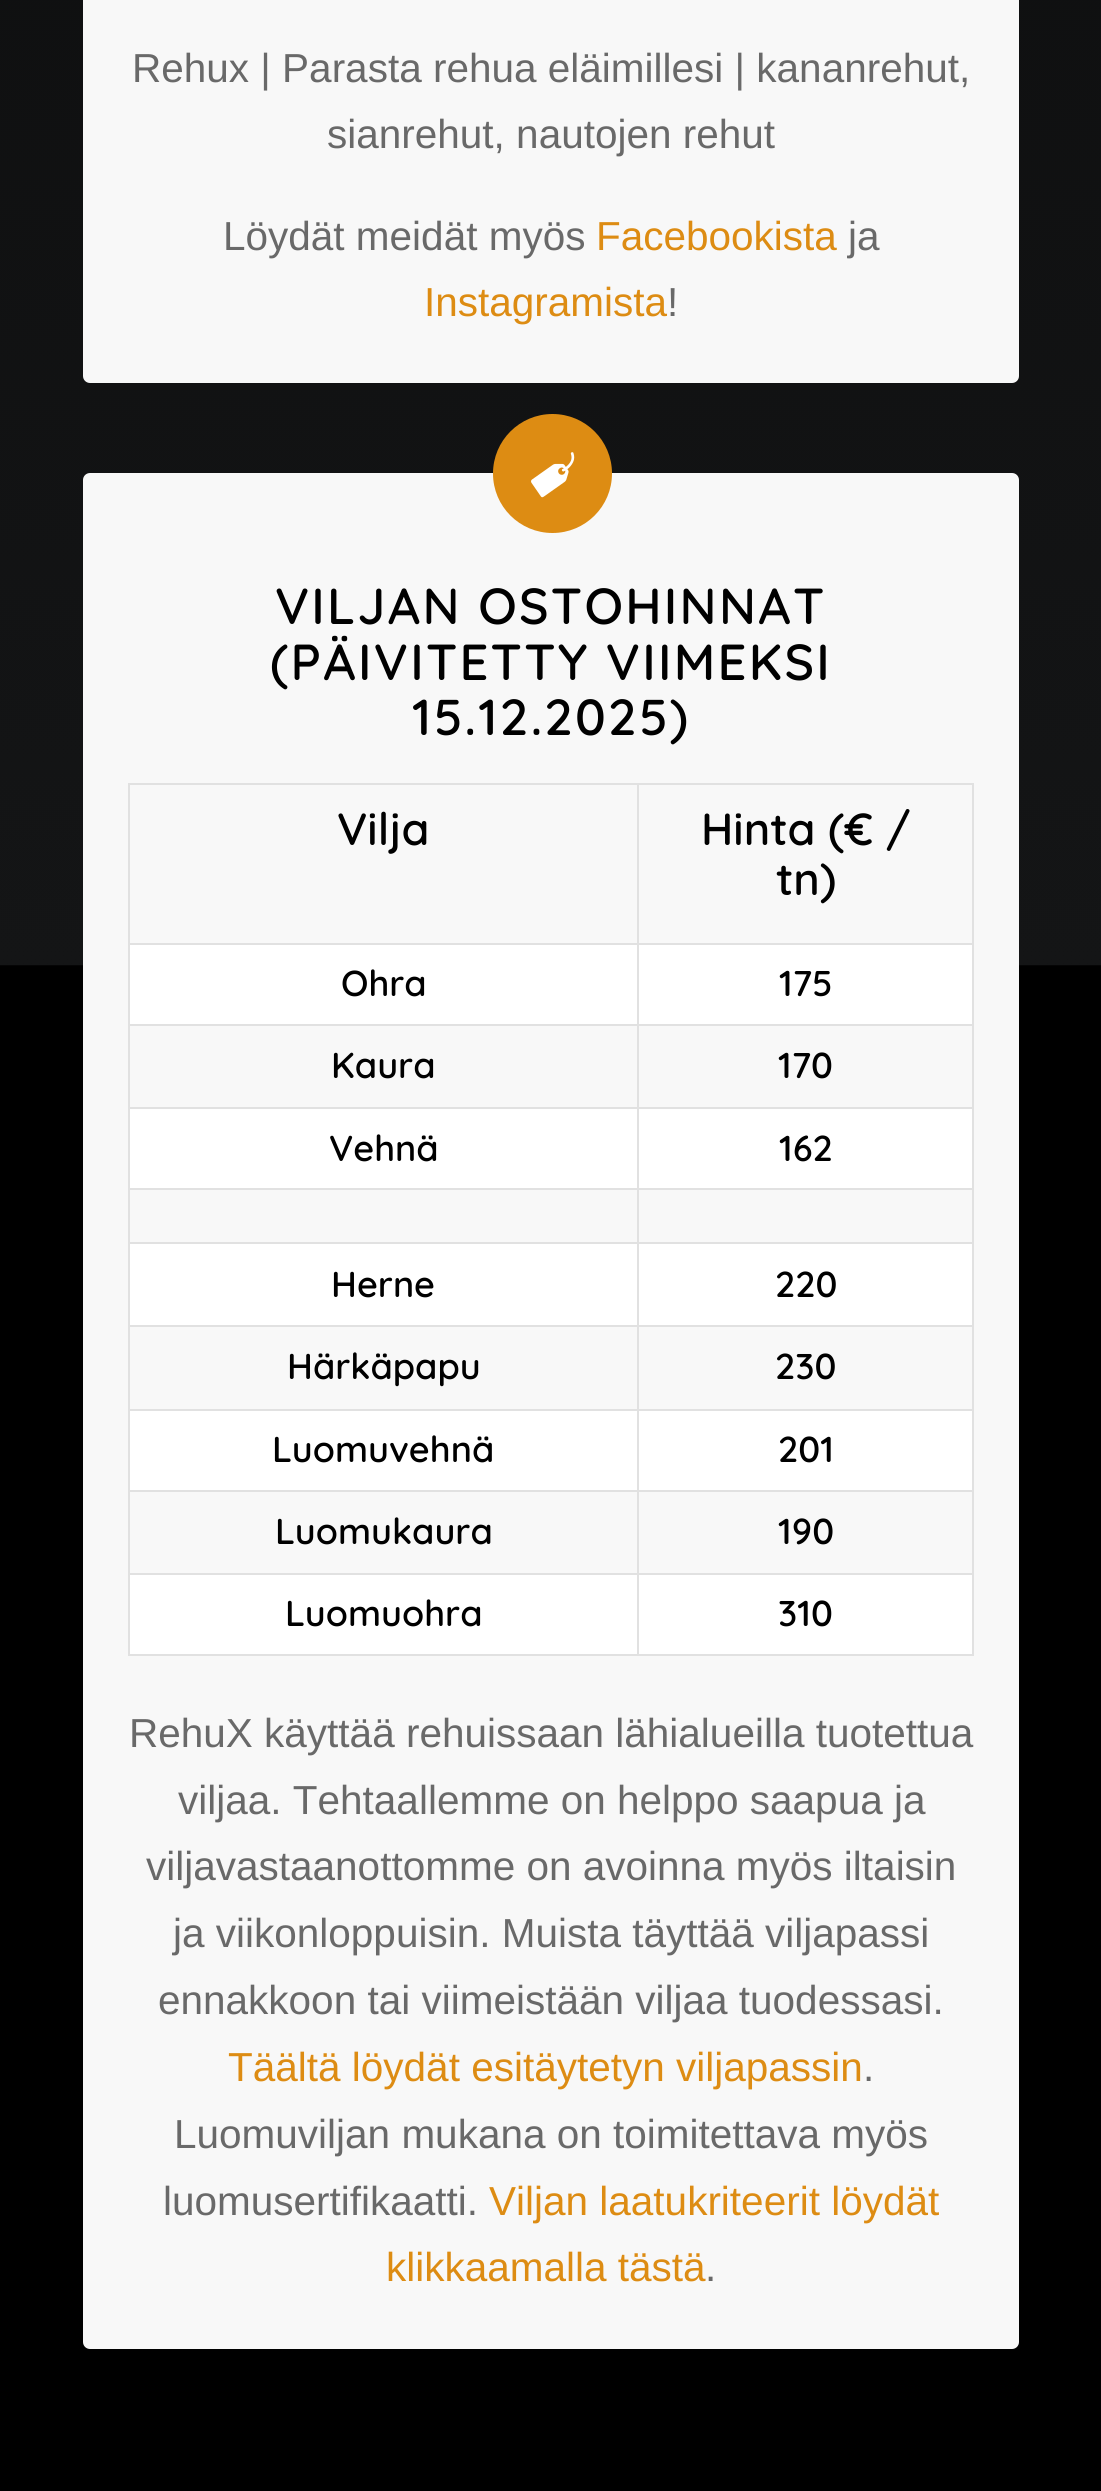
#include <cairo/cairo.h>
#include <math.h>
#include <stddef.h>


static void draw_spaced(cairo_t *cr, double x, double y, const char *s, double letter, double word) {
  cairo_move_to(cr, x, y);
  while (*s) {
    char ch[5] = {0};
    int n = 0;
    do ch[n++] = *s++; while ((*s & 0xC0) == 0x80);
    cairo_show_text(cr, ch);
    cairo_rel_move_to(cr, letter + word * (*ch == ' '), 0);
  }
}

static void rounded_rect(cairo_t *cr, double x, double y, double w, double h, double r) {
  cairo_new_sub_path(cr);
  cairo_arc(cr, x + w - r, y + h - r, r, 0, M_PI / 2);
  cairo_arc(cr, x + r, y + h - r, r, M_PI / 2, M_PI);
  cairo_arc(cr, x + r, y + r, r, M_PI, 1.5 * M_PI);
  cairo_arc(cr, x + w - r, y + r, r, 1.5 * M_PI, 2 * M_PI);
  cairo_close_path(cr);
}

static void draw_image(cairo_t *cr, const char *path, double x, double y, double w, double h) {
  cairo_surface_t *image = cairo_image_surface_create_from_png(path);
  cairo_save(cr);
  cairo_set_source_surface(cr, image, x, y);
  cairo_rectangle(cr, x, y, w, h);
  cairo_fill(cr);
  cairo_restore(cr);
  cairo_surface_destroy(image);
}

static void draw(cairo_t *cr) {
  cairo_set_source_rgb(cr, 0, 0, 0);
  cairo_paint(cr);
  draw_image(cr, "images/1.png", 0, 0, 1101, 966);
  cairo_set_source_rgb(cr, 248 / 255.0, 248 / 255.0, 248 / 255.0);
  rounded_rect(cr, 83, -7, 936, 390, 7);
  cairo_fill(cr);
  rounded_rect(cr, 83, 473, 936, 1876, 7);
  cairo_fill(cr);
  cairo_set_source_rgb(cr, 221 / 255.0, 140 / 255.0, 19 / 255.0);
  cairo_arc(cr, 552.5, 473.5, 59.5, 0, 2 * M_PI);
  cairo_fill(cr);
  draw_image(cr, "images/2.png", 531, 452, 44, 46);
  cairo_set_source_rgb(cr, 225 / 255.0, 225 / 255.0, 225 / 255.0);
  cairo_rectangle(cr, 128, 783, 846, 2);
  cairo_fill(cr);
  cairo_rectangle(cr, 972, 943, 2, 713);
  cairo_fill(cr);
  cairo_rectangle(cr, 972, 783, 2, 162);
  cairo_fill(cr);
  cairo_set_source_rgb(cr, 1, 1, 1);
  cairo_rectangle(cr, 130, 945, 842, 79);
  cairo_fill(cr);
  cairo_rectangle(cr, 130, 1109, 842, 79);
  cairo_fill(cr);
  cairo_rectangle(cr, 130, 1244, 842, 81);
  cairo_fill(cr);
  cairo_rectangle(cr, 130, 1411, 842, 79);
  cairo_fill(cr);
  cairo_rectangle(cr, 130, 1575, 842, 79);
  cairo_fill(cr);
  cairo_set_source_rgb(cr, 225 / 255.0, 225 / 255.0, 225 / 255.0);
  cairo_rectangle(cr, 637, 1654, 337, 2);
  cairo_fill(cr);
  cairo_rectangle(cr, 637, 1573, 2, 83);
  cairo_fill(cr);
  cairo_rectangle(cr, 637, 1573, 337, 2);
  cairo_fill(cr);
  cairo_rectangle(cr, 637, 1490, 2, 85);
  cairo_fill(cr);
  cairo_rectangle(cr, 637, 1490, 337, 2);
  cairo_fill(cr);
  cairo_rectangle(cr, 637, 1409, 2, 83);
  cairo_fill(cr);
  cairo_rectangle(cr, 637, 1409, 337, 2);
  cairo_fill(cr);
  cairo_rectangle(cr, 637, 1325, 2, 86);
  cairo_fill(cr);
  cairo_rectangle(cr, 637, 1325, 337, 2);
  cairo_fill(cr);
  cairo_rectangle(cr, 637, 1242, 2, 86);
  cairo_fill(cr);
  cairo_rectangle(cr, 637, 1242, 337, 2);
  cairo_fill(cr);
  cairo_rectangle(cr, 637, 1188, 2, 56);
  cairo_fill(cr);
  cairo_rectangle(cr, 637, 1188, 337, 2);
  cairo_fill(cr);
  cairo_rectangle(cr, 637, 1107, 2, 83);
  cairo_fill(cr);
  cairo_rectangle(cr, 637, 1107, 337, 2);
  cairo_fill(cr);
  cairo_rectangle(cr, 637, 1024, 2, 85);
  cairo_fill(cr);
  cairo_rectangle(cr, 637, 1024, 337, 2);
  cairo_fill(cr);
  cairo_rectangle(cr, 637, 943, 2, 83);
  cairo_fill(cr);
  cairo_rectangle(cr, 637, 943, 337, 2);
  cairo_fill(cr);
  cairo_rectangle(cr, 637, 783, 2, 162);
  cairo_fill(cr);
  cairo_rectangle(cr, 128, 1654, 511, 2);
  cairo_fill(cr);
  cairo_rectangle(cr, 128, 1573, 2, 83);
  cairo_fill(cr);
  cairo_rectangle(cr, 128, 1573, 511, 2);
  cairo_fill(cr);
  cairo_rectangle(cr, 128, 1490, 2, 85);
  cairo_fill(cr);
  cairo_rectangle(cr, 128, 1490, 511, 2);
  cairo_fill(cr);
  cairo_rectangle(cr, 128, 1409, 2, 83);
  cairo_fill(cr);
  cairo_rectangle(cr, 128, 1409, 511, 2);
  cairo_fill(cr);
  cairo_rectangle(cr, 128, 1325, 2, 86);
  cairo_fill(cr);
  cairo_rectangle(cr, 128, 1325, 511, 2);
  cairo_fill(cr);
  cairo_rectangle(cr, 128, 1242, 2, 86);
  cairo_fill(cr);
  cairo_rectangle(cr, 128, 1242, 511, 2);
  cairo_fill(cr);
  cairo_rectangle(cr, 128, 1188, 2, 56);
  cairo_fill(cr);
  cairo_rectangle(cr, 128, 1188, 511, 2);
  cairo_fill(cr);
  cairo_rectangle(cr, 128, 1107, 2, 83);
  cairo_fill(cr);
  cairo_rectangle(cr, 128, 1107, 511, 2);
  cairo_fill(cr);
  cairo_rectangle(cr, 128, 1024, 2, 85);
  cairo_fill(cr);
  cairo_rectangle(cr, 128, 1024, 511, 2);
  cairo_fill(cr);
  cairo_rectangle(cr, 128, 943, 2, 83);
  cairo_fill(cr);
  cairo_rectangle(cr, 128, 943, 511, 2);
  cairo_fill(cr);
  cairo_rectangle(cr, 128, 783, 2, 162);
  cairo_fill(cr);
  cairo_select_font_face(cr, "Liberation Sans", CAIRO_FONT_SLANT_NORMAL, CAIRO_FONT_WEIGHT_NORMAL);
  cairo_set_font_size(cr, 40.5);
  cairo_set_source_rgb(cr, 105 / 255.0, 105 / 255.0, 105 / 255.0);
  cairo_move_to(cr, 132, 82);
  cairo_show_text(cr, "Rehux | Parasta rehua eläimillesi | kananrehut,");
  cairo_move_to(cr, 327, 148);
  cairo_show_text(cr, "sianrehut, nautojen rehut");
  cairo_move_to(cr, 223, 250);
  cairo_show_text(cr, "Löydät meidät myös");
  cairo_set_source_rgb(cr, 221 / 255.0, 140 / 255.0, 19 / 255.0);
  cairo_move_to(cr, 596, 250);
  cairo_show_text(cr, "Facebookista");
  cairo_set_source_rgb(cr, 105 / 255.0, 105 / 255.0, 105 / 255.0);
  cairo_move_to(cr, 848, 250);
  cairo_show_text(cr, "ja");
  cairo_set_source_rgb(cr, 221 / 255.0, 140 / 255.0, 19 / 255.0);
  cairo_move_to(cr, 424, 316);
  cairo_show_text(cr, "Instagramista");
  cairo_set_source_rgb(cr, 105 / 255.0, 105 / 255.0, 105 / 255.0);
  cairo_move_to(cr, 667, 316);
  cairo_show_text(cr, "!");
  cairo_select_font_face(cr, "Quicksand SemiBold", CAIRO_FONT_SLANT_NORMAL, CAIRO_FONT_WEIGHT_NORMAL);
  cairo_set_font_size(cr, 50.6);
  cairo_set_source_rgb(cr, 0, 0, 0);
  draw_spaced(cr, 275, 624, "VILJAN OSTOHINNAT", 2.25, 0);
  draw_spaced(cr, 270, 680, "(PÄIVITETTY VIIMEKSI", 2.25, 0);
  draw_spaced(cr, 412, 735, "15.12.2025)", 2.25, 0);
  cairo_set_font_size(cr, 45);
  cairo_move_to(cr, 337, 845);
  cairo_show_text(cr, "Vilja");
  cairo_move_to(cr, 701, 845);
  cairo_show_text(cr, "Hinta (€ /");
  cairo_move_to(cr, 776, 895);
  cairo_show_text(cr, "tn)");
  cairo_set_font_size(cr, 36);
  cairo_move_to(cr, 341, 996);
  cairo_show_text(cr, "Ohra");
  cairo_move_to(cr, 779, 996);
  cairo_show_text(cr, "175");
  cairo_move_to(cr, 331, 1078);
  cairo_show_text(cr, "Kaura");
  cairo_move_to(cr, 778, 1078);
  cairo_show_text(cr, "170");
  cairo_move_to(cr, 329, 1161);
  cairo_show_text(cr, "Vehnä");
  cairo_move_to(cr, 779, 1161);
  cairo_show_text(cr, "162");
  cairo_move_to(cr, 331, 1297);
  cairo_show_text(cr, "Herne");
  cairo_move_to(cr, 775, 1297);
  cairo_show_text(cr, "220");
  cairo_move_to(cr, 287, 1379);
  cairo_show_text(cr, "Härkäpapu");
  cairo_move_to(cr, 775, 1379);
  cairo_show_text(cr, "230");
  cairo_move_to(cr, 272, 1462);
  cairo_show_text(cr, "Luomuvehnä");
  cairo_move_to(cr, 778, 1462);
  cairo_show_text(cr, "201");
  cairo_move_to(cr, 275, 1544);
  cairo_show_text(cr, "Luomukaura");
  cairo_move_to(cr, 778, 1544);
  cairo_show_text(cr, "190");
  cairo_move_to(cr, 285, 1626);
  cairo_show_text(cr, "Luomuohra");
  cairo_move_to(cr, 778, 1626);
  cairo_show_text(cr, "310");
  cairo_select_font_face(cr, "Liberation Sans", CAIRO_FONT_SLANT_NORMAL, CAIRO_FONT_WEIGHT_NORMAL);
  cairo_set_font_size(cr, 40.5);
  cairo_set_source_rgb(cr, 105 / 255.0, 105 / 255.0, 105 / 255.0);
  cairo_move_to(cr, 129, 1747);
  cairo_show_text(cr, "RehuX käyttää rehuissaan lähialueilla tuotettua");
  cairo_move_to(cr, 178, 1814);
  cairo_show_text(cr, "viljaa. Tehtaallemme on helppo saapua ja");
  cairo_move_to(cr, 146, 1880);
  cairo_show_text(cr, "viljavastaanottomme on avoinna myös iltaisin");
  cairo_move_to(cr, 173, 1947);
  cairo_show_text(cr, "ja viikonloppuisin. Muista täyttää viljapassi");
  cairo_move_to(cr, 158, 2014);
  cairo_show_text(cr, "ennakkoon tai viimeistään viljaa tuodessasi.");
  cairo_set_source_rgb(cr, 221 / 255.0, 140 / 255.0, 19 / 255.0);
  cairo_move_to(cr, 228, 2081);
  cairo_show_text(cr, "Täältä löydät esitäytetyn viljapassin");
  cairo_set_source_rgb(cr, 105 / 255.0, 105 / 255.0, 105 / 255.0);
  cairo_move_to(cr, 863, 2081);
  cairo_show_text(cr, ".");
  cairo_move_to(cr, 174, 2148);
  cairo_show_text(cr, "Luomuviljan mukana on toimitettava myös");
  cairo_move_to(cr, 163, 2215);
  cairo_show_text(cr, "luomusertifikaatti.");
  cairo_set_source_rgb(cr, 221 / 255.0, 140 / 255.0, 19 / 255.0);
  cairo_move_to(cr, 489, 2215);
  cairo_show_text(cr, "Viljan laatukriteerit löydät");
  cairo_move_to(cr, 386, 2281);
  cairo_show_text(cr, "klikkaamalla tästä");
  cairo_set_source_rgb(cr, 105 / 255.0, 105 / 255.0, 105 / 255.0);
  cairo_move_to(cr, 705, 2281);
  cairo_show_text(cr, ".");
}

int main(void) {
  cairo_surface_t *surface = cairo_image_surface_create(CAIRO_FORMAT_RGB24, 1101, 2491);
  cairo_t *cr = cairo_create(surface);
  cairo_font_options_t *options = cairo_font_options_create();
  cairo_font_options_set_hint_metrics(options, CAIRO_HINT_METRICS_OFF);
  cairo_font_options_set_hint_style(options, CAIRO_HINT_STYLE_NONE);
  cairo_set_font_options(cr, options);
  cairo_set_miter_limit(cr, 4);
  draw(cr);
  cairo_surface_write_to_png(surface, "out.png");
  cairo_font_options_destroy(options);
  cairo_destroy(cr);
  cairo_surface_destroy(surface);
  return 0;
}
